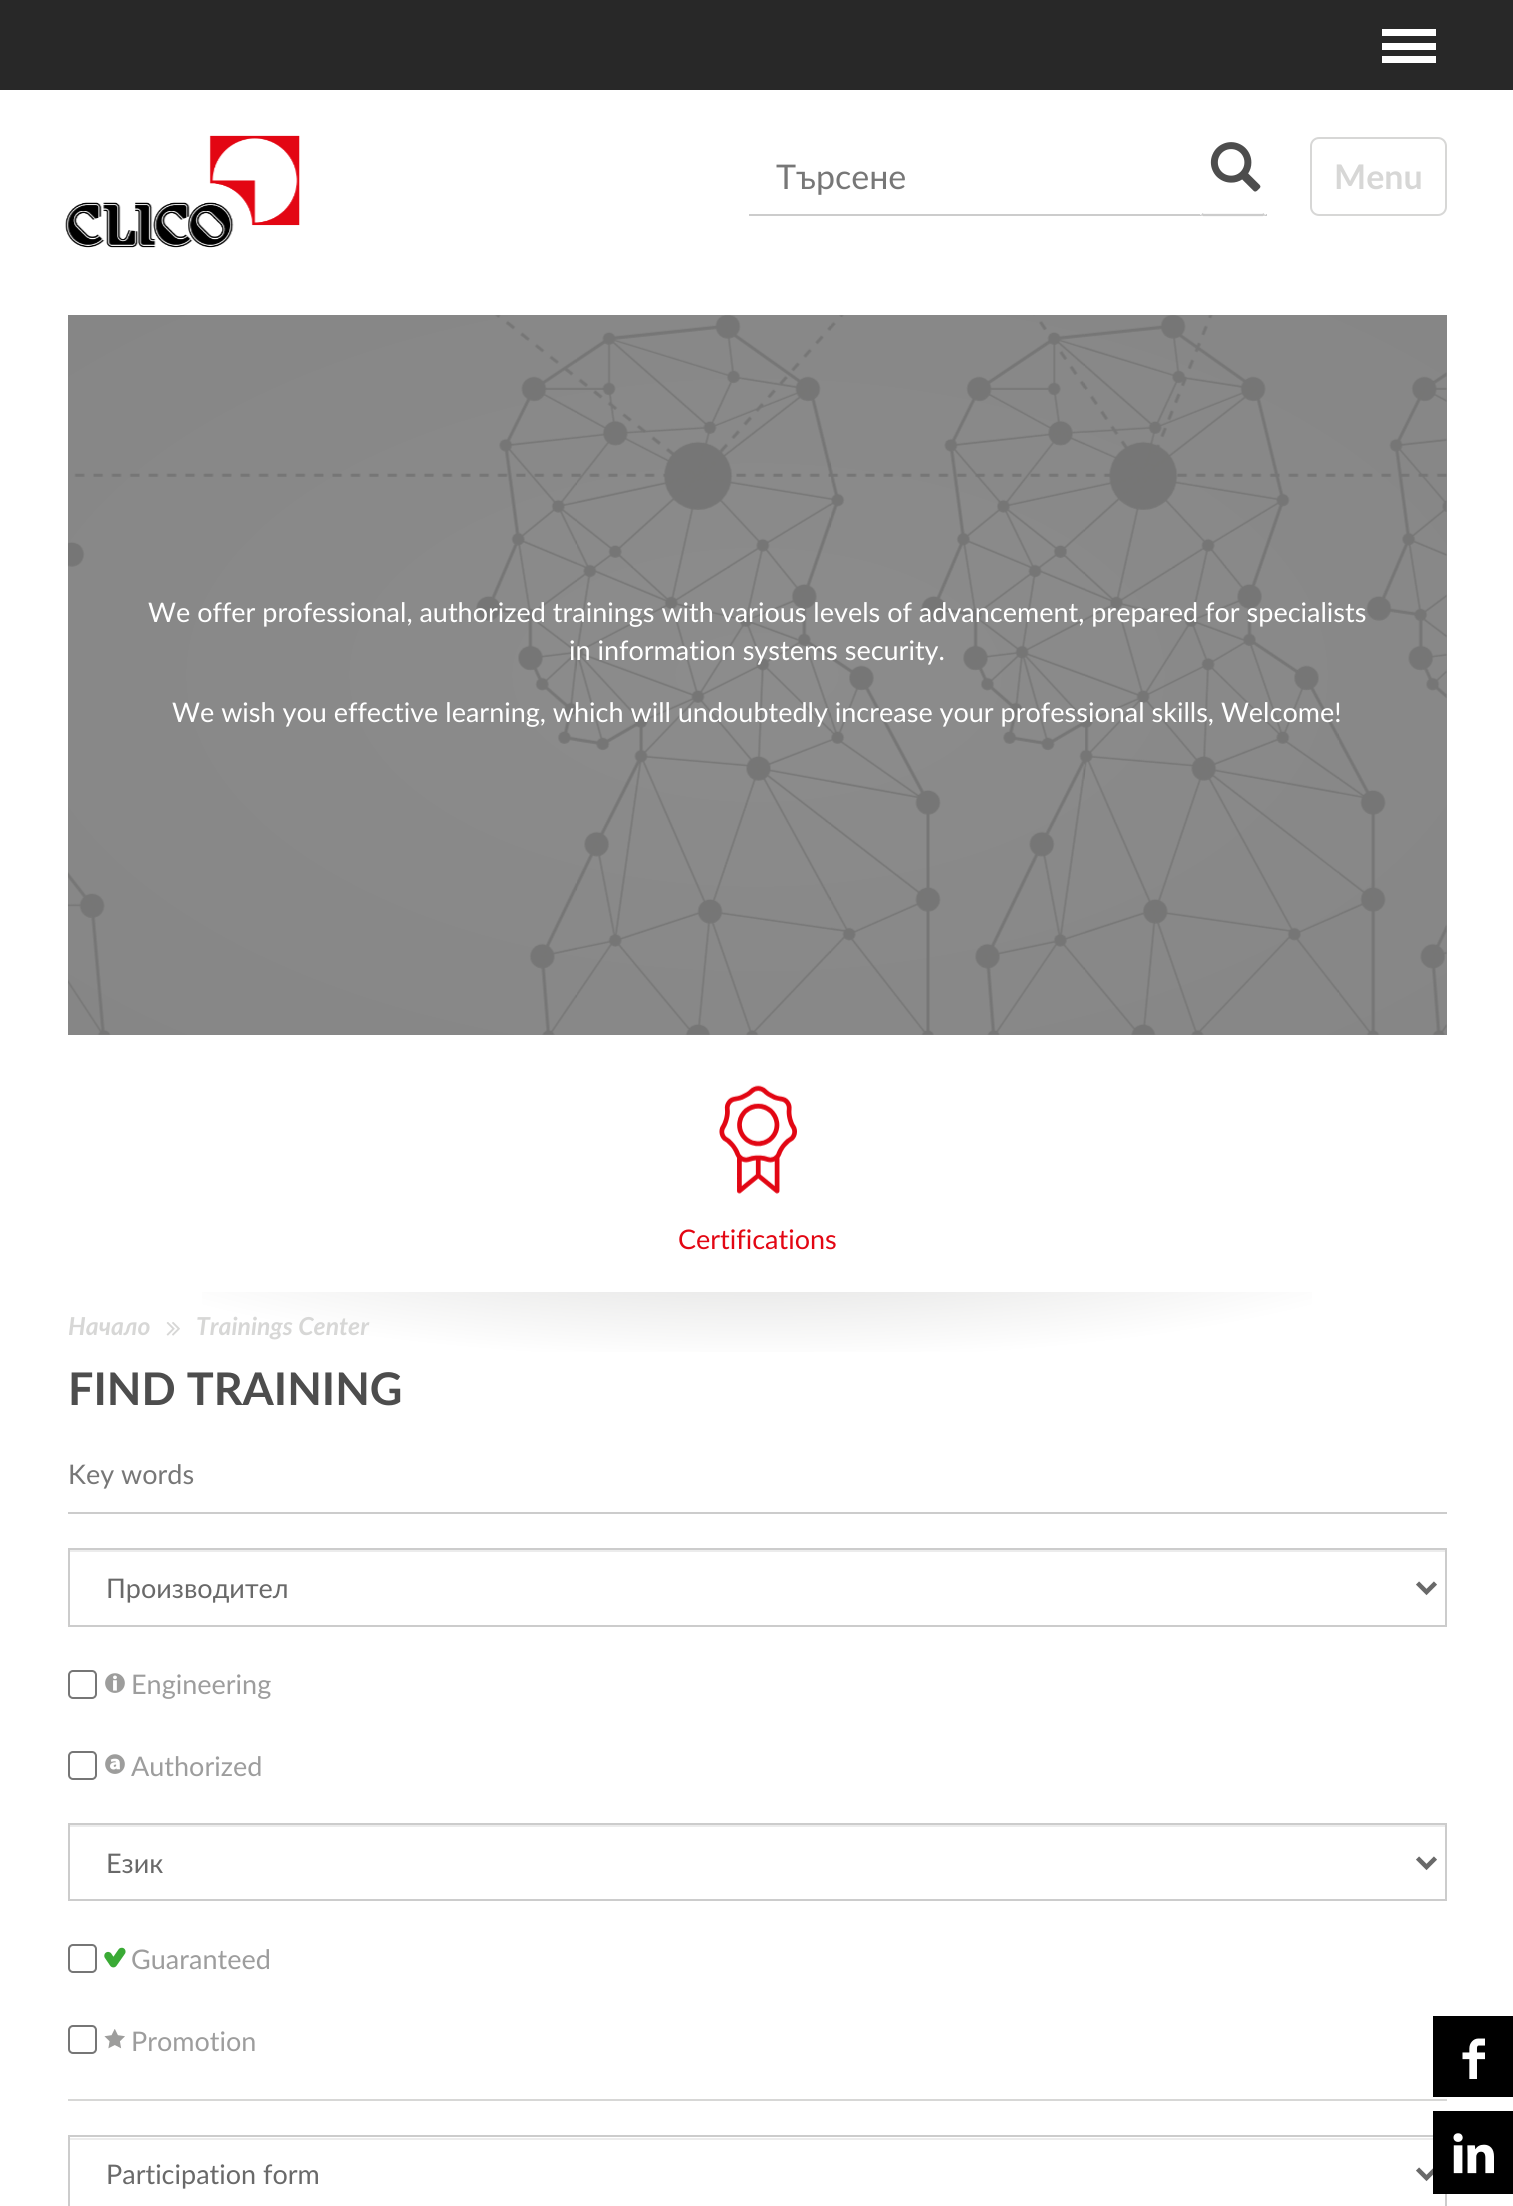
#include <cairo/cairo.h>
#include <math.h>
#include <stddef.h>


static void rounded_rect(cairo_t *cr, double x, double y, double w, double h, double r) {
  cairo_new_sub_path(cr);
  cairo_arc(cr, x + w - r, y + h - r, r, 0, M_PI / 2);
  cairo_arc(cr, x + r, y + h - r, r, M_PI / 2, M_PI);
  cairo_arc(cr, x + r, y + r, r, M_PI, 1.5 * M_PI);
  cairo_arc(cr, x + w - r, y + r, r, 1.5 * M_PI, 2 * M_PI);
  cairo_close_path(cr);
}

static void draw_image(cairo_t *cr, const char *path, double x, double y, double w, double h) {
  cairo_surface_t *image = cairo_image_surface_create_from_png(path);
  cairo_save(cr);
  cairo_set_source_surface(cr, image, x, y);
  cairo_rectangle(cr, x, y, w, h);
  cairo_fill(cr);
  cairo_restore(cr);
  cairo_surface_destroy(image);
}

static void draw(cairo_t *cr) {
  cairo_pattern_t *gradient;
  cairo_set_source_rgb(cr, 1, 1, 1);
  cairo_paint(cr);
  cairo_set_source_rgb(cr, 40 / 255.0, 40 / 255.0, 40 / 255.0);
  cairo_rectangle(cr, 0, 0, 1513, 90);
  cairo_fill(cr);
  cairo_set_source_rgb(cr, 1, 1, 1);
  cairo_rectangle(cr, 1382, 29, 54, 7);
  cairo_fill(cr);
  cairo_rectangle(cr, 1382, 43, 54, 7);
  cairo_fill(cr);
  cairo_rectangle(cr, 1382, 56, 54, 7);
  cairo_fill(cr);
  cairo_set_source_rgb(cr, 0, 0, 0);
  cairo_rectangle(cr, 1433, 2016, 80, 81);
  cairo_fill(cr);
  draw_image(cr, "images/1.png", 1462, 2038, 23, 41);
  cairo_set_source_rgb(cr, 236 / 255.0, 236 / 255.0, 236 / 255.0);
  cairo_rectangle(cr, 70, 2138, 1363, 2);
  cairo_fill(cr);
  cairo_rectangle(cr, 69, 2136, 1377, 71);
  cairo_set_source_rgb(cr, 204 / 255.0, 204 / 255.0, 204 / 255.0);
  cairo_stroke(cr);
  cairo_new_path(cr);
  cairo_move_to(cr, 1417.5, 2169);
  cairo_line_to(cr, 1426.5, 2178);
  cairo_line_to(cr, 1435.5, 2169);
  cairo_set_source_rgb(cr, 105 / 255.0, 105 / 255.0, 105 / 255.0);
  cairo_set_line_width(cr, 4.5);
  cairo_stroke(cr);
  cairo_set_source_rgb(cr, 0, 0, 0);
  cairo_rectangle(cr, 1433, 2111, 80, 83);
  cairo_fill(cr);
  draw_image(cr, "images/2.png", 1453, 2133, 41, 41);
  draw_image(cr, "images/3.png", 65, 135, 235, 113);
  cairo_set_source_rgb(cr, 204 / 255.0, 204 / 255.0, 204 / 255.0);
  cairo_rectangle(cr, 749, 214, 518, 2);
  cairo_fill(cr);
  cairo_set_source_rgb(cr, 1, 1, 1);
  rounded_rect(cr, 1199, 140, 68, 76, 5);
  cairo_fill(cr);
  cairo_new_path(cr);
  cairo_move_to(cr, 1264.5, 214);
  cairo_line_to(cr, 1262.5, 215);
  cairo_line_to(cr, 1203.5, 215);
  cairo_line_to(cr, 1201.5, 214);
  cairo_set_source_rgb(cr, 204 / 255.0, 204 / 255.0, 204 / 255.0);
  cairo_set_line_width(cr, 2.2);
  cairo_stroke(cr);
  cairo_new_path(cr);
  cairo_move_to(cr, 1201.5, 214);
  cairo_curve_to(cr, 1198.5, 211, 1200.5, 200.5, 1200.5, 200);
  cairo_line_to(cr, 1200.5, 155);
  cairo_curve_to(cr, 1200.5, 139, 1198, 140.5, 1213.5, 140.5);
  cairo_line_to(cr, 1252.5, 140.5);
  cairo_curve_to(cr, 1268, 140.5, 1265.5, 139, 1265.5, 155);
  cairo_line_to(cr, 1265.5, 200);
  cairo_curve_to(cr, 1265.5, 200.5, 1267.5, 211, 1264.5, 214);
  cairo_set_source_rgb(cr, 1, 1, 1);
  cairo_stroke(cr);
  draw_image(cr, "images/4.png", 1210, 142, 51, 50);
  rounded_rect(cr, 1311, 138, 135, 77, 8);
  cairo_set_source_rgb(cr, 215 / 255.0, 215 / 255.0, 214 / 255.0);
  cairo_set_line_width(cr, 2);
  cairo_stroke(cr);
  gradient = cairo_pattern_create_radial(0, 0, 0, 0, 0, 1);
  cairo_pattern_set_matrix(gradient, &(cairo_matrix_t){1.0 / 975, 0, 0, 1.0 / 509, -1.0 * 757 / 975, -1.0 * 675 / 509});
  cairo_pattern_add_color_stop_rgba(gradient, 0, 140 / 255.0, 140 / 255.0, 140 / 255.0, 1);
  cairo_pattern_add_color_stop_rgba(gradient, 1, 134 / 255.0, 134 / 255.0, 134 / 255.0, 1);
  cairo_set_source(cr, gradient);
  cairo_pattern_destroy(gradient);
  cairo_rectangle(cr, 68, 315, 1379, 720);
  cairo_fill(cr);
  draw_image(cr, "images/5.png", 68, 315, 1379, 720);
  draw_image(cr, "images/6.png", 719, 1085, 78, 109);
  gradient = cairo_pattern_create_radial(0, 0, 0, 0, 0, 1);
  cairo_pattern_set_matrix(gradient, &(cairo_matrix_t){1.0 / 1023, 0, 0, 1.0 / 204, -1.0 * 757 / 1023, -1.0 * 1220 / 204});
  cairo_pattern_add_color_stop_rgba(gradient, 0, 215 / 255.0, 215 / 255.0, 214 / 255.0, 1);
  cairo_pattern_add_color_stop_rgba(gradient, 0.69, 1, 1, 1, 1);
  cairo_set_source(cr, gradient);
  cairo_pattern_destroy(gradient);
  cairo_rectangle(cr, 202, 1292, 1110, 60);
  cairo_fill(cr);
  draw_image(cr, "images/7.png", 166, 1322, 14, 14);
  cairo_set_source_rgb(cr, 204 / 255.0, 204 / 255.0, 204 / 255.0);
  cairo_rectangle(cr, 68, 1512, 1379, 2);
  cairo_fill(cr);
  cairo_set_source_rgb(cr, 236 / 255.0, 236 / 255.0, 236 / 255.0);
  cairo_rectangle(cr, 70, 1550, 1375, 2);
  cairo_fill(cr);
  cairo_rectangle(cr, 69, 1549, 1377, 77);
  cairo_set_source_rgb(cr, 204 / 255.0, 204 / 255.0, 204 / 255.0);
  cairo_stroke(cr);
  cairo_new_path(cr);
  cairo_move_to(cr, 1417.5, 1583);
  cairo_line_to(cr, 1426.5, 1592);
  cairo_line_to(cr, 1435.5, 1583);
  cairo_set_source_rgb(cr, 105 / 255.0, 105 / 255.0, 105 / 255.0);
  cairo_set_line_width(cr, 4.5);
  cairo_stroke(cr);
  rounded_rect(cr, 69, 1671, 27, 27, 4);
  cairo_set_source_rgb(cr, 118 / 255.0, 118 / 255.0, 118 / 255.0);
  cairo_set_line_width(cr, 2);
  cairo_stroke(cr);
  draw_image(cr, "images/8.png", 105, 1673, 20, 20);
  rounded_rect(cr, 69, 1752, 27, 27, 4);
  cairo_stroke(cr);
  draw_image(cr, "images/9.png", 105, 1754, 20, 20);
  cairo_set_source_rgb(cr, 236 / 255.0, 236 / 255.0, 236 / 255.0);
  cairo_rectangle(cr, 70, 1825, 1375, 2);
  cairo_fill(cr);
  cairo_rectangle(cr, 69, 1824, 1377, 76);
  cairo_set_source_rgb(cr, 204 / 255.0, 204 / 255.0, 204 / 255.0);
  cairo_stroke(cr);
  cairo_new_path(cr);
  cairo_move_to(cr, 1417.5, 1858);
  cairo_line_to(cr, 1426.5, 1867);
  cairo_line_to(cr, 1435.5, 1858);
  cairo_set_source_rgb(cr, 105 / 255.0, 105 / 255.0, 105 / 255.0);
  cairo_set_line_width(cr, 4.5);
  cairo_stroke(cr);
  rounded_rect(cr, 69, 1945, 27, 27, 4);
  cairo_set_source_rgb(cr, 118 / 255.0, 118 / 255.0, 118 / 255.0);
  cairo_set_line_width(cr, 2);
  cairo_stroke(cr);
  draw_image(cr, "images/10.png", 104, 1947, 22, 21);
  rounded_rect(cr, 69, 2026, 27, 27, 4);
  cairo_stroke(cr);
  draw_image(cr, "images/11.png", 104, 2029, 21, 20);
  cairo_set_source_rgb(cr, 215 / 255.0, 215 / 255.0, 214 / 255.0);
  cairo_rectangle(cr, 68, 2099, 1379, 2);
  cairo_fill(cr);
  cairo_select_font_face(cr, "Lato", CAIRO_FONT_SLANT_NORMAL, CAIRO_FONT_WEIGHT_NORMAL);
  cairo_set_font_size(cr, 34);
  cairo_set_source_rgb(cr, 119 / 255.0, 119 / 255.0, 119 / 255.0);
  cairo_move_to(cr, 776, 189);
  cairo_show_text(cr, "Търсене");
  cairo_select_font_face(cr, "Lato", CAIRO_FONT_SLANT_NORMAL, CAIRO_FONT_WEIGHT_BOLD);
  cairo_set_source_rgb(cr, 215 / 255.0, 215 / 255.0, 214 / 255.0);
  cairo_move_to(cr, 1334, 189);
  cairo_show_text(cr, "Menu");
  cairo_select_font_face(cr, "Lato", CAIRO_FONT_SLANT_NORMAL, CAIRO_FONT_WEIGHT_NORMAL);
  cairo_set_font_size(cr, 27);
  cairo_set_source_rgb(cr, 1, 1, 1);
  cairo_move_to(cr, 148, 622);
  cairo_show_text(cr, "We offer professional, authorized trainings with various levels of advancement, prepared for specialists");
  cairo_move_to(cr, 569, 660);
  cairo_show_text(cr, "in information systems security.");
  cairo_move_to(cr, 172, 722);
  cairo_show_text(cr, "We wish you effective learning, which will undoubtedly increase your professional skills, Welcome!");
  cairo_set_source_rgb(cr, 227 / 255.0, 6 / 255.0, 19 / 255.0);
  cairo_move_to(cr, 678, 1249);
  cairo_show_text(cr, "Certifications");
  cairo_select_font_face(cr, "Lato", CAIRO_FONT_SLANT_ITALIC, CAIRO_FONT_WEIGHT_BOLD);
  cairo_set_font_size(cr, 24.75);
  cairo_set_source_rgb(cr, 215 / 255.0, 215 / 255.0, 214 / 255.0);
  cairo_move_to(cr, 68, 1335);
  cairo_show_text(cr, "Начало");
  cairo_move_to(cr, 196, 1335);
  cairo_show_text(cr, "Trainings Center");
  cairo_select_font_face(cr, "Lato", CAIRO_FONT_SLANT_NORMAL, CAIRO_FONT_WEIGHT_BOLD);
  cairo_set_font_size(cr, 45);
  cairo_set_source_rgb(cr, 77 / 255.0, 77 / 255.0, 77 / 255.0);
  cairo_move_to(cr, 68, 1405);
  cairo_show_text(cr, "FIND TRAINING");
  cairo_select_font_face(cr, "Lato", CAIRO_FONT_SLANT_NORMAL, CAIRO_FONT_WEIGHT_NORMAL);
  cairo_set_font_size(cr, 27);
  cairo_set_source_rgb(cr, 119 / 255.0, 119 / 255.0, 119 / 255.0);
  cairo_move_to(cr, 68, 1484);
  cairo_show_text(cr, "Key words");
  cairo_set_source_rgb(cr, 105 / 255.0, 105 / 255.0, 105 / 255.0);
  cairo_move_to(cr, 106, 1598);
  cairo_show_text(cr, "Производител");
  cairo_set_source_rgb(cr, 157 / 255.0, 157 / 255.0, 157 / 255.0);
  cairo_move_to(cr, 131, 1694);
  cairo_show_text(cr, "Engineering");
  cairo_move_to(cr, 131, 1776);
  cairo_show_text(cr, "Authorized");
  cairo_set_source_rgb(cr, 105 / 255.0, 105 / 255.0, 105 / 255.0);
  cairo_move_to(cr, 106, 1873);
  cairo_show_text(cr, "Език");
  cairo_set_source_rgb(cr, 157 / 255.0, 157 / 255.0, 157 / 255.0);
  cairo_move_to(cr, 131, 1969);
  cairo_show_text(cr, "Guaranteed");
  cairo_move_to(cr, 131, 2051);
  cairo_show_text(cr, "Promotion");
  cairo_set_source_rgb(cr, 105 / 255.0, 105 / 255.0, 105 / 255.0);
  cairo_move_to(cr, 106, 2184);
  cairo_show_text(cr, "Participation form");
}

int main(void) {
  cairo_surface_t *surface = cairo_image_surface_create(CAIRO_FORMAT_RGB24, 1513, 2206);
  cairo_t *cr = cairo_create(surface);
  cairo_font_options_t *options = cairo_font_options_create();
  cairo_font_options_set_hint_metrics(options, CAIRO_HINT_METRICS_OFF);
  cairo_font_options_set_hint_style(options, CAIRO_HINT_STYLE_NONE);
  cairo_set_font_options(cr, options);
  cairo_set_miter_limit(cr, 4);
  draw(cr);
  cairo_surface_write_to_png(surface, "out.png");
  cairo_font_options_destroy(options);
  cairo_destroy(cr);
  cairo_surface_destroy(surface);
  return 0;
}
